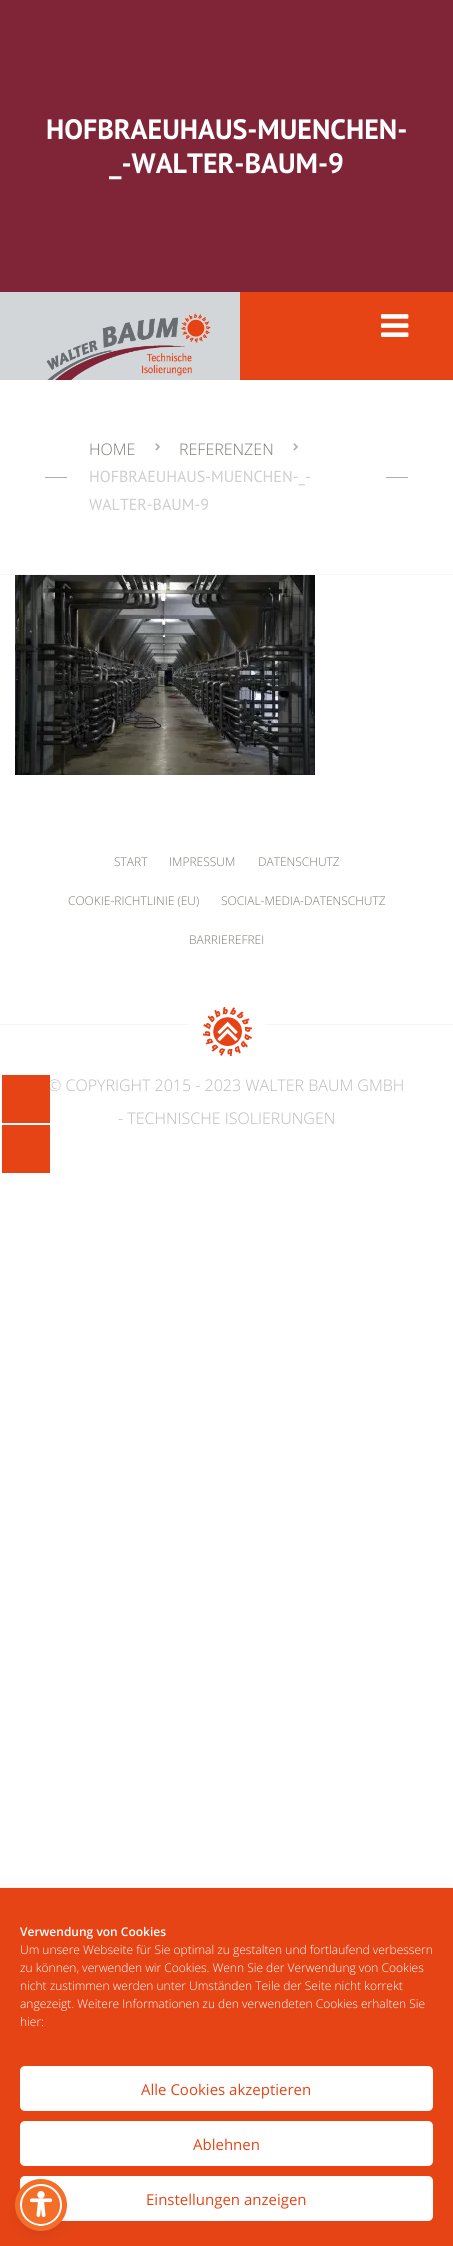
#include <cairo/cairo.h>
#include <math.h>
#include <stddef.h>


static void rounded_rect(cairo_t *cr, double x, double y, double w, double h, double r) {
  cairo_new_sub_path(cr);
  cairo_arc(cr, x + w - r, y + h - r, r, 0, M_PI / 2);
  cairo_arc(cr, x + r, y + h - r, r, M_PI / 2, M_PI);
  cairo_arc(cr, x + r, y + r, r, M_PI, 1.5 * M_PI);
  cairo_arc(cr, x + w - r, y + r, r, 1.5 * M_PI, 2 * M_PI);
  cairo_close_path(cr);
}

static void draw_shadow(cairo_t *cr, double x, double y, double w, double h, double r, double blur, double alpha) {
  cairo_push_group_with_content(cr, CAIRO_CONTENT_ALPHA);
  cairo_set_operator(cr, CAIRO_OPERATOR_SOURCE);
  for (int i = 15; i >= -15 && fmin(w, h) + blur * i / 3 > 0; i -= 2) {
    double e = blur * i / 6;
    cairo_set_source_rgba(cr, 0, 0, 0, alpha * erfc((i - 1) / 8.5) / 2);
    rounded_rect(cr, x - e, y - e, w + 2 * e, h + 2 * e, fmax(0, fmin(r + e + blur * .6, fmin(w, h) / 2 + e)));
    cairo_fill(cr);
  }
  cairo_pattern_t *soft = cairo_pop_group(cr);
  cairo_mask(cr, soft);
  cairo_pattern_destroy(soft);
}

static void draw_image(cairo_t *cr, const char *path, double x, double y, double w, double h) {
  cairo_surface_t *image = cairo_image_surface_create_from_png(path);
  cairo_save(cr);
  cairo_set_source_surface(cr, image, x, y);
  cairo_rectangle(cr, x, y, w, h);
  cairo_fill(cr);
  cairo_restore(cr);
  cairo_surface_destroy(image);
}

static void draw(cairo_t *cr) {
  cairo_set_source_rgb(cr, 1, 1, 1);
  cairo_paint(cr);
  cairo_set_source_rgb(cr, 230 / 255.0, 68 / 255.0, 21 / 255.0);
  cairo_rectangle(cr, 2, 1125, 48, 48);
  cairo_fill(cr);
  cairo_set_source_rgb(cr, 128 / 255.0, 37 / 255.0, 55 / 255.0);
  cairo_rectangle(cr, 0, 0, 453, 292);
  cairo_fill(cr);
  cairo_set_source_rgb(cr, 230 / 255.0, 68 / 255.0, 21 / 255.0);
  cairo_rectangle(cr, 240, 292, 213, 88);
  cairo_fill(cr);
  cairo_set_source_rgb(cr, 210 / 255.0, 214 / 255.0, 216 / 255.0);
  cairo_rectangle(cr, 0, 292, 240, 88);
  cairo_fill(cr);
  draw_image(cr, "images/1.png", 46, 313, 165, 67);
  draw_image(cr, "images/2.png", 381, 314, 28, 23);
  cairo_set_source_rgb(cr, 246 / 255.0, 246 / 255.0, 246 / 255.0);
  cairo_rectangle(cr, 0, 574, 453, 1);
  cairo_fill(cr);
  cairo_set_source_rgb(cr, 173 / 255.0, 173 / 255.0, 173 / 255.0);
  cairo_rectangle(cr, 45, 477, 22, 1);
  cairo_fill(cr);
  draw_image(cr, "images/3.png", 155, 443, 5, 8);
  draw_image(cr, "images/3.png", 293, 443, 5, 8);
  cairo_rectangle(cr, 386, 477, 22, 1);
  cairo_fill(cr);
  draw_image(cr, "images/4.png", 15, 575, 300, 200);
  cairo_set_source_rgb(cr, 246 / 255.0, 246 / 255.0, 246 / 255.0);
  cairo_rectangle(cr, 0, 1024, 453, 1);
  cairo_fill(cr);
  cairo_set_source_rgb(cr, 1, 1, 1);
  cairo_rectangle(cr, 188, 1024, 77, 1);
  cairo_fill(cr);
  draw_image(cr, "images/5.png", 203, 1007, 49, 49);
  cairo_set_source_rgb(cr, 0, 0, 0);
  draw_shadow(cr, 0, 1898, 453, 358, 0, 10, 0.19);
  cairo_set_source_rgb(cr, 230 / 255.0, 68 / 255.0, 21 / 255.0);
  cairo_rectangle(cr, 0, 1888, 453, 358);
  cairo_fill(cr);
  cairo_set_source_rgb(cr, 1, 1, 1);
  rounded_rect(cr, 20.5, 2066.5, 412, 44, 4.5);
  cairo_fill_preserve(cr);
  cairo_set_line_width(cr, 1);
  cairo_stroke(cr);
  rounded_rect(cr, 20.5, 2121.5, 412, 44, 4.5);
  cairo_fill_preserve(cr);
  cairo_stroke(cr);
  rounded_rect(cr, 20.5, 2176.5, 412, 44, 4.5);
  cairo_fill_preserve(cr);
  cairo_stroke(cr);
  cairo_set_source_rgb(cr, 93 / 255.0, 100 / 255.0, 148 / 255.0);
  draw_shadow(cr, 20, 2186, 42, 42, 21, 2, 0.2);
  cairo_set_source_rgb(cr, 37 / 255.0, 44 / 255.0, 97 / 255.0);
  draw_shadow(cr, 20, 2189, 42, 42, 21, 7.5, 0.15);
  cairo_set_source_rgb(cr, 245 / 255.0, 110 / 255.0, 40 / 255.0);
  cairo_arc(cr, 41, 2205, 20, 0, 2 * M_PI);
  cairo_fill_preserve(cr);
  cairo_set_source_rgb(cr, 1, 1, 1);
  cairo_set_line_width(cr, 2);
  cairo_stroke(cr);
  cairo_arc(cr, 41, 2205, 23.5, 0, 2 * M_PI);
  cairo_set_source_rgb(cr, 245 / 255.0, 110 / 255.0, 40 / 255.0);
  cairo_set_line_width(cr, 5);
  cairo_stroke(cr);
  draw_image(cr, "images/6.png", 29, 2191, 24, 26);
  cairo_select_font_face(cr, "PT Sans", CAIRO_FONT_SLANT_NORMAL, CAIRO_FONT_WEIGHT_BOLD);
  cairo_set_font_size(cr, 28);
  cairo_set_source_rgb(cr, 1, 1, 1);
  cairo_move_to(cr, 46, 139);
  cairo_show_text(cr, "HOFBRAEUHAUS-MUENCHEN-");
  cairo_move_to(cr, 109, 173);
  cairo_show_text(cr, "_-WALTER-BAUM-9");
  cairo_select_font_face(cr, "Open Sans Light", CAIRO_FONT_SLANT_NORMAL, CAIRO_FONT_WEIGHT_NORMAL);
  cairo_set_font_size(cr, 16);
  cairo_set_source_rgb(cr, 118 / 255.0, 125 / 255.0, 113 / 255.0);
  cairo_move_to(cr, 89, 455);
  cairo_show_text(cr, "HOME");
  cairo_move_to(cr, 179, 455);
  cairo_show_text(cr, "REFERENZEN");
  cairo_select_font_face(cr, "PT Sans", CAIRO_FONT_SLANT_NORMAL, CAIRO_FONT_WEIGHT_NORMAL);
  cairo_set_source_rgb(cr, 206 / 255.0, 206 / 255.0, 206 / 255.0);
  cairo_move_to(cr, 89, 482);
  cairo_show_text(cr, "HOFBRAEUHAUS-MUENCHEN-_-");
  cairo_move_to(cr, 89, 510);
  cairo_show_text(cr, "WALTER-BAUM-9");
  cairo_select_font_face(cr, "Open Sans Light", CAIRO_FONT_SLANT_NORMAL, CAIRO_FONT_WEIGHT_NORMAL);
  cairo_set_font_size(cr, 12);
  cairo_set_source_rgb(cr, 118 / 255.0, 125 / 255.0, 113 / 255.0);
  cairo_move_to(cr, 114, 866);
  cairo_show_text(cr, "START");
  cairo_move_to(cr, 169, 866);
  cairo_show_text(cr, "IMPRESSUM");
  cairo_move_to(cr, 258, 866);
  cairo_show_text(cr, "DATENSCHUTZ");
  cairo_move_to(cr, 68, 905);
  cairo_show_text(cr, "COOKIE-RICHTLINIE (EU)");
  cairo_move_to(cr, 221, 905);
  cairo_show_text(cr, "SOCIAL-MEDIA-DATENSCHUTZ");
  cairo_move_to(cr, 189, 944);
  cairo_show_text(cr, "BARRIEREFREI");
  cairo_set_font_size(cr, 16);
  cairo_set_source_rgb(cr, 186 / 255.0, 186 / 255.0, 186 / 255.0);
  cairo_move_to(cr, 48, 1091);
  cairo_show_text(cr, "© COPYRIGHT 2015 - 2023 WALTER BAUM GMBH");
  cairo_set_source_rgb(cr, 230 / 255.0, 68 / 255.0, 21 / 255.0);
  cairo_rectangle(cr, 2, 1075, 48, 48);
  cairo_fill(cr);
  cairo_set_source_rgb(cr, 186 / 255.0, 186 / 255.0, 186 / 255.0);
  cairo_move_to(cr, 118, 1124);
  cairo_show_text(cr, "- TECHNISCHE ISOLIERUNGEN");
  cairo_select_font_face(cr, "Open Sans SemiBold", CAIRO_FONT_SLANT_NORMAL, CAIRO_FONT_WEIGHT_NORMAL);
  cairo_set_font_size(cr, 12);
  cairo_set_source_rgb(cr, 1, 1, 1);
  cairo_move_to(cr, 20, 1936);
  cairo_show_text(cr, "Verwendung von Cookies");
  cairo_select_font_face(cr, "Open Sans Light", CAIRO_FONT_SLANT_NORMAL, CAIRO_FONT_WEIGHT_NORMAL);
  cairo_move_to(cr, 20, 1954);
  cairo_show_text(cr, "Um unsere Webseite für Sie optimal zu gestalten und fortlaufend verbessern");
  cairo_move_to(cr, 20, 1972);
  cairo_show_text(cr, "zu können, verwenden wir Cookies. Wenn Sie der Verwendung von Cookies");
  cairo_move_to(cr, 20, 1990);
  cairo_show_text(cr, "nicht zustimmen werden unter Umständen Teile der Seite nicht korrekt");
  cairo_move_to(cr, 20, 2008);
  cairo_show_text(cr, "angezeigt. Weitere Informationen zu den verwendeten Cookies erhalten Sie");
  cairo_move_to(cr, 20, 2026);
  cairo_show_text(cr, "hier:");
  cairo_select_font_face(cr, "Open Sans", CAIRO_FONT_SLANT_NORMAL, CAIRO_FONT_WEIGHT_NORMAL);
  cairo_set_font_size(cr, 15);
  cairo_set_source_rgb(cr, 230 / 255.0, 68 / 255.0, 21 / 255.0);
  cairo_move_to(cr, 141, 2095);
  cairo_show_text(cr, "Alle Cookies akzeptieren");
  cairo_move_to(cr, 193, 2150);
  cairo_show_text(cr, "Ablehnen");
  cairo_move_to(cr, 146, 2205);
  cairo_show_text(cr, "Einstellungen anzeigen");
}

int main(void) {
  cairo_surface_t *surface = cairo_image_surface_create(CAIRO_FORMAT_RGB24, 453, 2246);
  cairo_t *cr = cairo_create(surface);
  cairo_font_options_t *options = cairo_font_options_create();
  cairo_font_options_set_hint_metrics(options, CAIRO_HINT_METRICS_OFF);
  cairo_font_options_set_hint_style(options, CAIRO_HINT_STYLE_NONE);
  cairo_set_font_options(cr, options);
  cairo_set_miter_limit(cr, 4);
  draw(cr);
  cairo_surface_write_to_png(surface, "out.png");
  cairo_font_options_destroy(options);
  cairo_destroy(cr);
  cairo_surface_destroy(surface);
  return 0;
}
